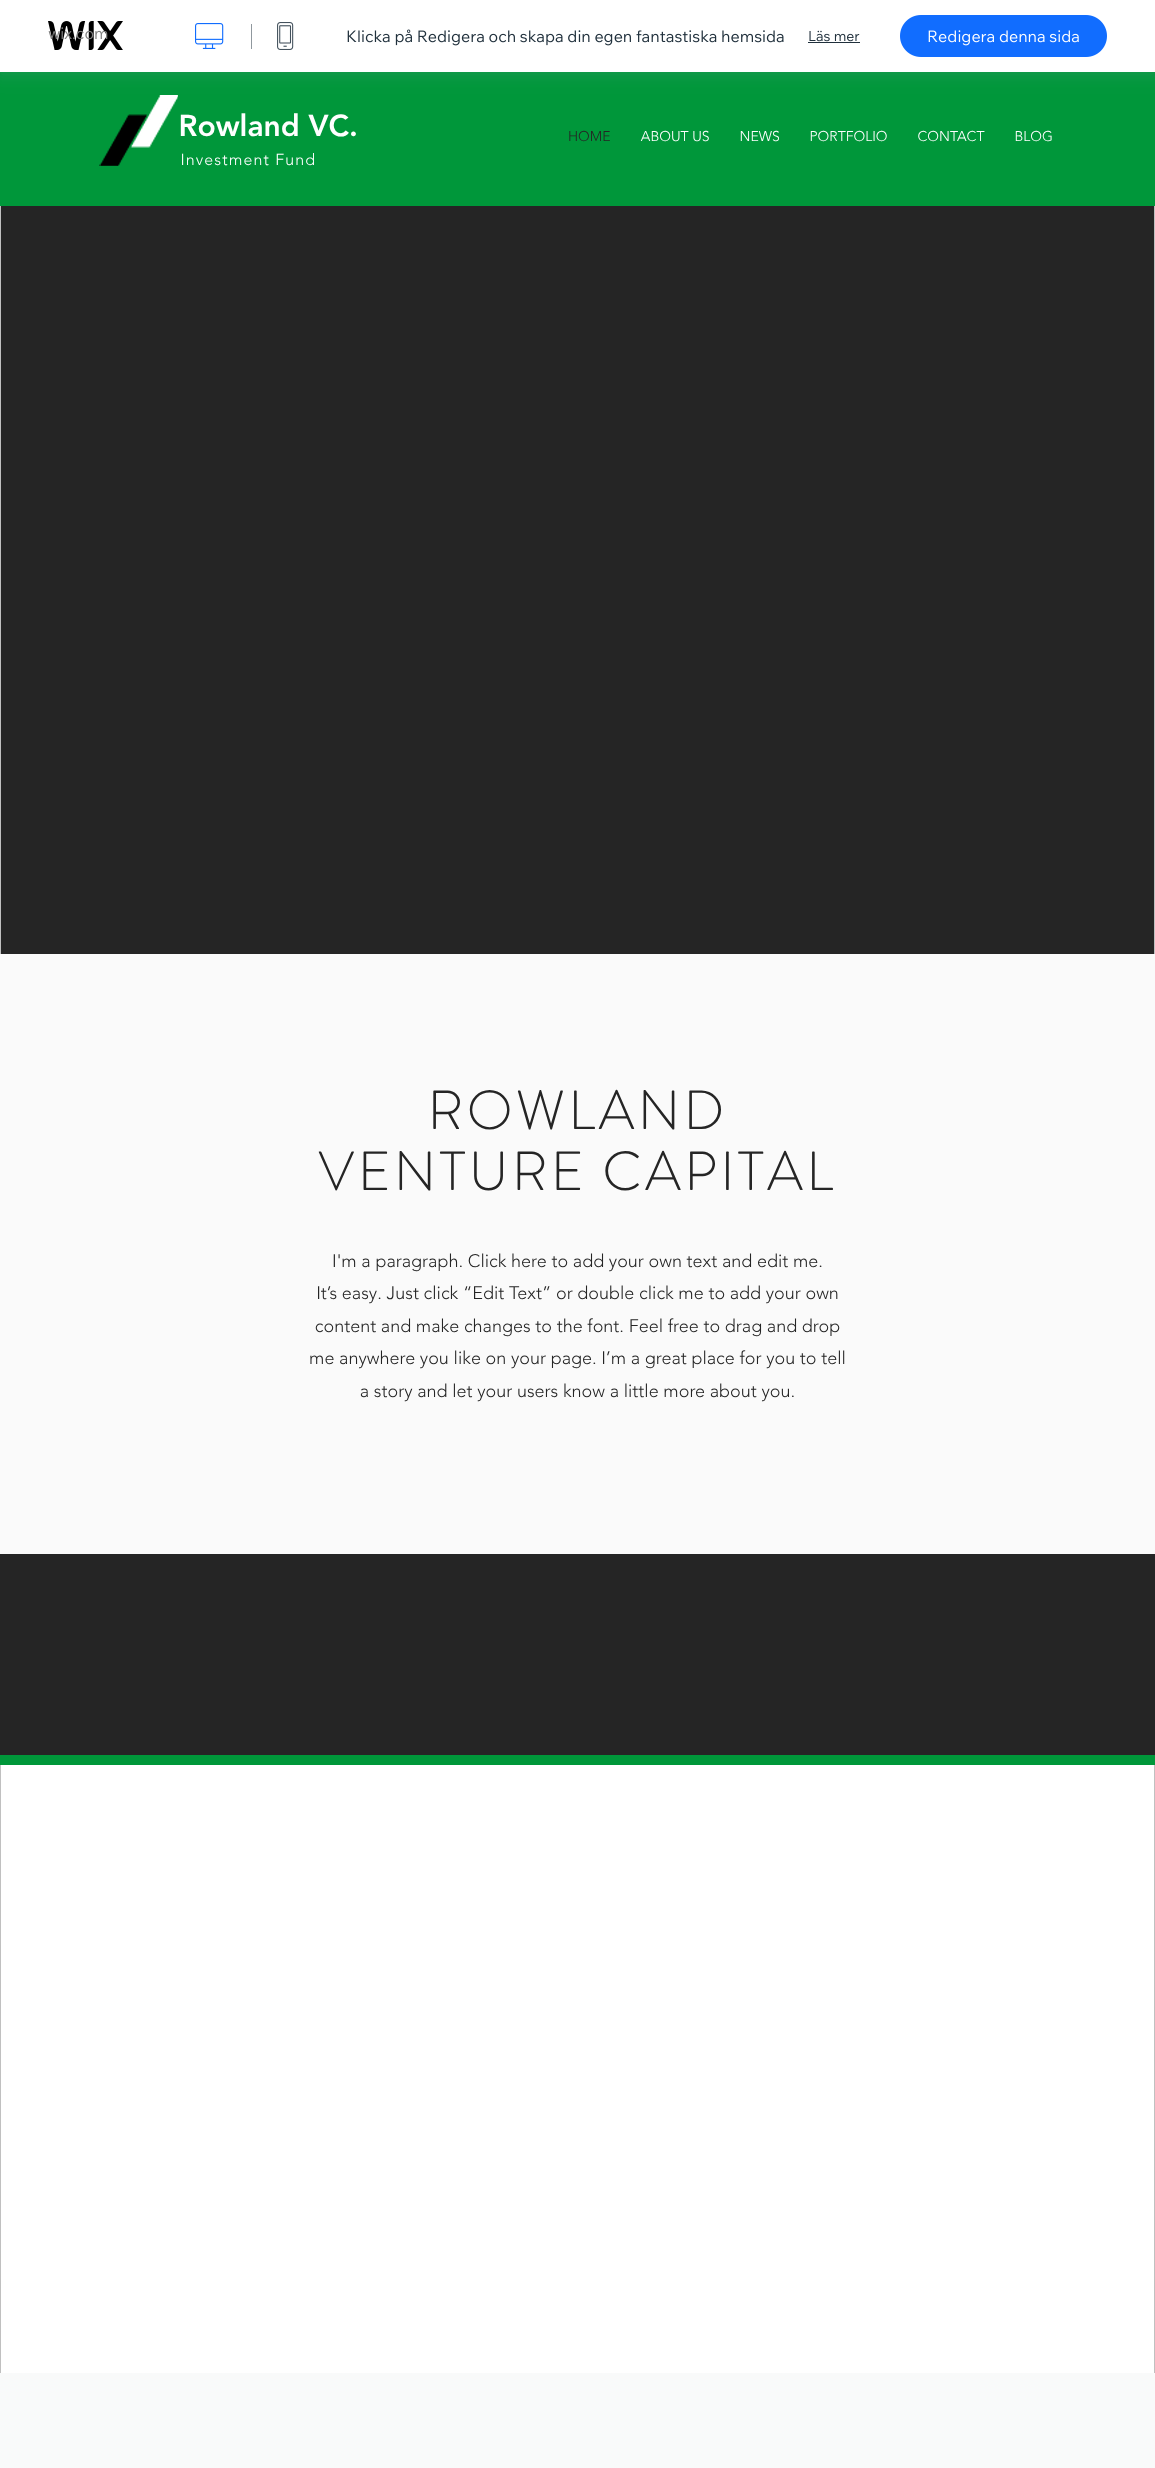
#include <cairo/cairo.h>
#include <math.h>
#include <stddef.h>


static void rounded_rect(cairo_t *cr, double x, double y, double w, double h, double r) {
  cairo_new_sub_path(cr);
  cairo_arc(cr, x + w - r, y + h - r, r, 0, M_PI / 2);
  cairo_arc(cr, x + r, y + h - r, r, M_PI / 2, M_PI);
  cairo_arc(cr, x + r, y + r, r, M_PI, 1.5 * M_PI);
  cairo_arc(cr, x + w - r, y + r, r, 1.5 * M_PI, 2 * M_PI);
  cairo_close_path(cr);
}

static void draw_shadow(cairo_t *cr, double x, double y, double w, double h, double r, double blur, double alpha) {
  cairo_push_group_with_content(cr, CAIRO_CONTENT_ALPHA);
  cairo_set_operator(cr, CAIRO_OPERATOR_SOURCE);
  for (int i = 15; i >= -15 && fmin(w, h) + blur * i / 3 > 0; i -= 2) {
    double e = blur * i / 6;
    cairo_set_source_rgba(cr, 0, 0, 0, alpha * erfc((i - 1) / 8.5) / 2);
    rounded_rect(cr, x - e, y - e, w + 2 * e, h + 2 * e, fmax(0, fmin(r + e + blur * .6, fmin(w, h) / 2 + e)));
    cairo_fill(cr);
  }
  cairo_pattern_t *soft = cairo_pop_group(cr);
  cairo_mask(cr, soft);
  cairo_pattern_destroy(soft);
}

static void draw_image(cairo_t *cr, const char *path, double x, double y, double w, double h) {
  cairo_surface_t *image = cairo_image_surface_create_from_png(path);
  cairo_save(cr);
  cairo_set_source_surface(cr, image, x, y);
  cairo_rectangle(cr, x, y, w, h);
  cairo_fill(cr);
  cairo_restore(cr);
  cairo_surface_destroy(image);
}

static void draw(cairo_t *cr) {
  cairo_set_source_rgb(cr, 249 / 255.0, 250 / 255.0, 250 / 255.0);
  cairo_paint(cr);
  draw_image(cr, "images/4.png", 0, 72, 1155, 2301);
  cairo_set_source_rgb(cr, 129 / 255.0, 162 / 255.0, 182 / 255.0);
  draw_shadow(cr, 0, 2, 1155, 72, 0, 9, 0.2);
  cairo_set_source_rgb(cr, 1, 1, 1);
  cairo_rectangle(cr, 0, 0, 1155, 72);
  cairo_fill(cr);
  draw_image(cr, "images/1.png", 48, 21, 75, 29);
  draw_image(cr, "images/2.png", 195, 23, 29, 26);
  cairo_set_source_rgb(cr, 144 / 255.0, 152 / 255.0, 158 / 255.0);
  cairo_rectangle(cr, 251, 24, 1, 25);
  cairo_fill(cr);
  draw_image(cr, "images/3.png", 277, 22, 17, 28);
  cairo_set_source_rgb(cr, 32 / 255.0, 48 / 255.0, 60 / 255.0);
  cairo_rectangle(cr, 808, 42, 52, 1);
  cairo_fill(cr);
  cairo_set_source_rgb(cr, 17 / 255.0, 109 / 255.0, 1);
  rounded_rect(cr, 900, 15, 207, 42, 21);
  cairo_fill(cr);
  cairo_select_font_face(cr, "Wix Madefor Text", CAIRO_FONT_SLANT_NORMAL, CAIRO_FONT_WEIGHT_NORMAL);
  cairo_set_font_size(cr, 16);
  cairo_set_source_rgb(cr, 128 / 255.0, 128 / 255.0, 128 / 255.0);
  cairo_move_to(cr, 48, 39);
  cairo_show_text(cr, "wix.com");
  cairo_set_source_rgb(cr, 32 / 255.0, 48 / 255.0, 60 / 255.0);
  cairo_move_to(cr, 346, 42);
  cairo_show_text(cr, "Klicka på Redigera och skapa din egen fantastiska hemsida");
  cairo_set_font_size(cr, 14);
  cairo_move_to(cr, 808, 41);
  cairo_show_text(cr, "Läs mer");
  cairo_set_font_size(cr, 16);
  cairo_set_source_rgb(cr, 1, 1, 1);
  cairo_move_to(cr, 927, 42);
  cairo_show_text(cr, "Redigera denna sida");
}

int main(void) {
  cairo_surface_t *surface = cairo_image_surface_create(CAIRO_FORMAT_RGB24, 1155, 2468);
  cairo_t *cr = cairo_create(surface);
  cairo_font_options_t *options = cairo_font_options_create();
  cairo_font_options_set_hint_metrics(options, CAIRO_HINT_METRICS_OFF);
  cairo_font_options_set_hint_style(options, CAIRO_HINT_STYLE_NONE);
  cairo_set_font_options(cr, options);
  cairo_set_miter_limit(cr, 4);
  draw(cr);
  cairo_surface_write_to_png(surface, "out.png");
  cairo_font_options_destroy(options);
  cairo_destroy(cr);
  cairo_surface_destroy(surface);
  return 0;
}
